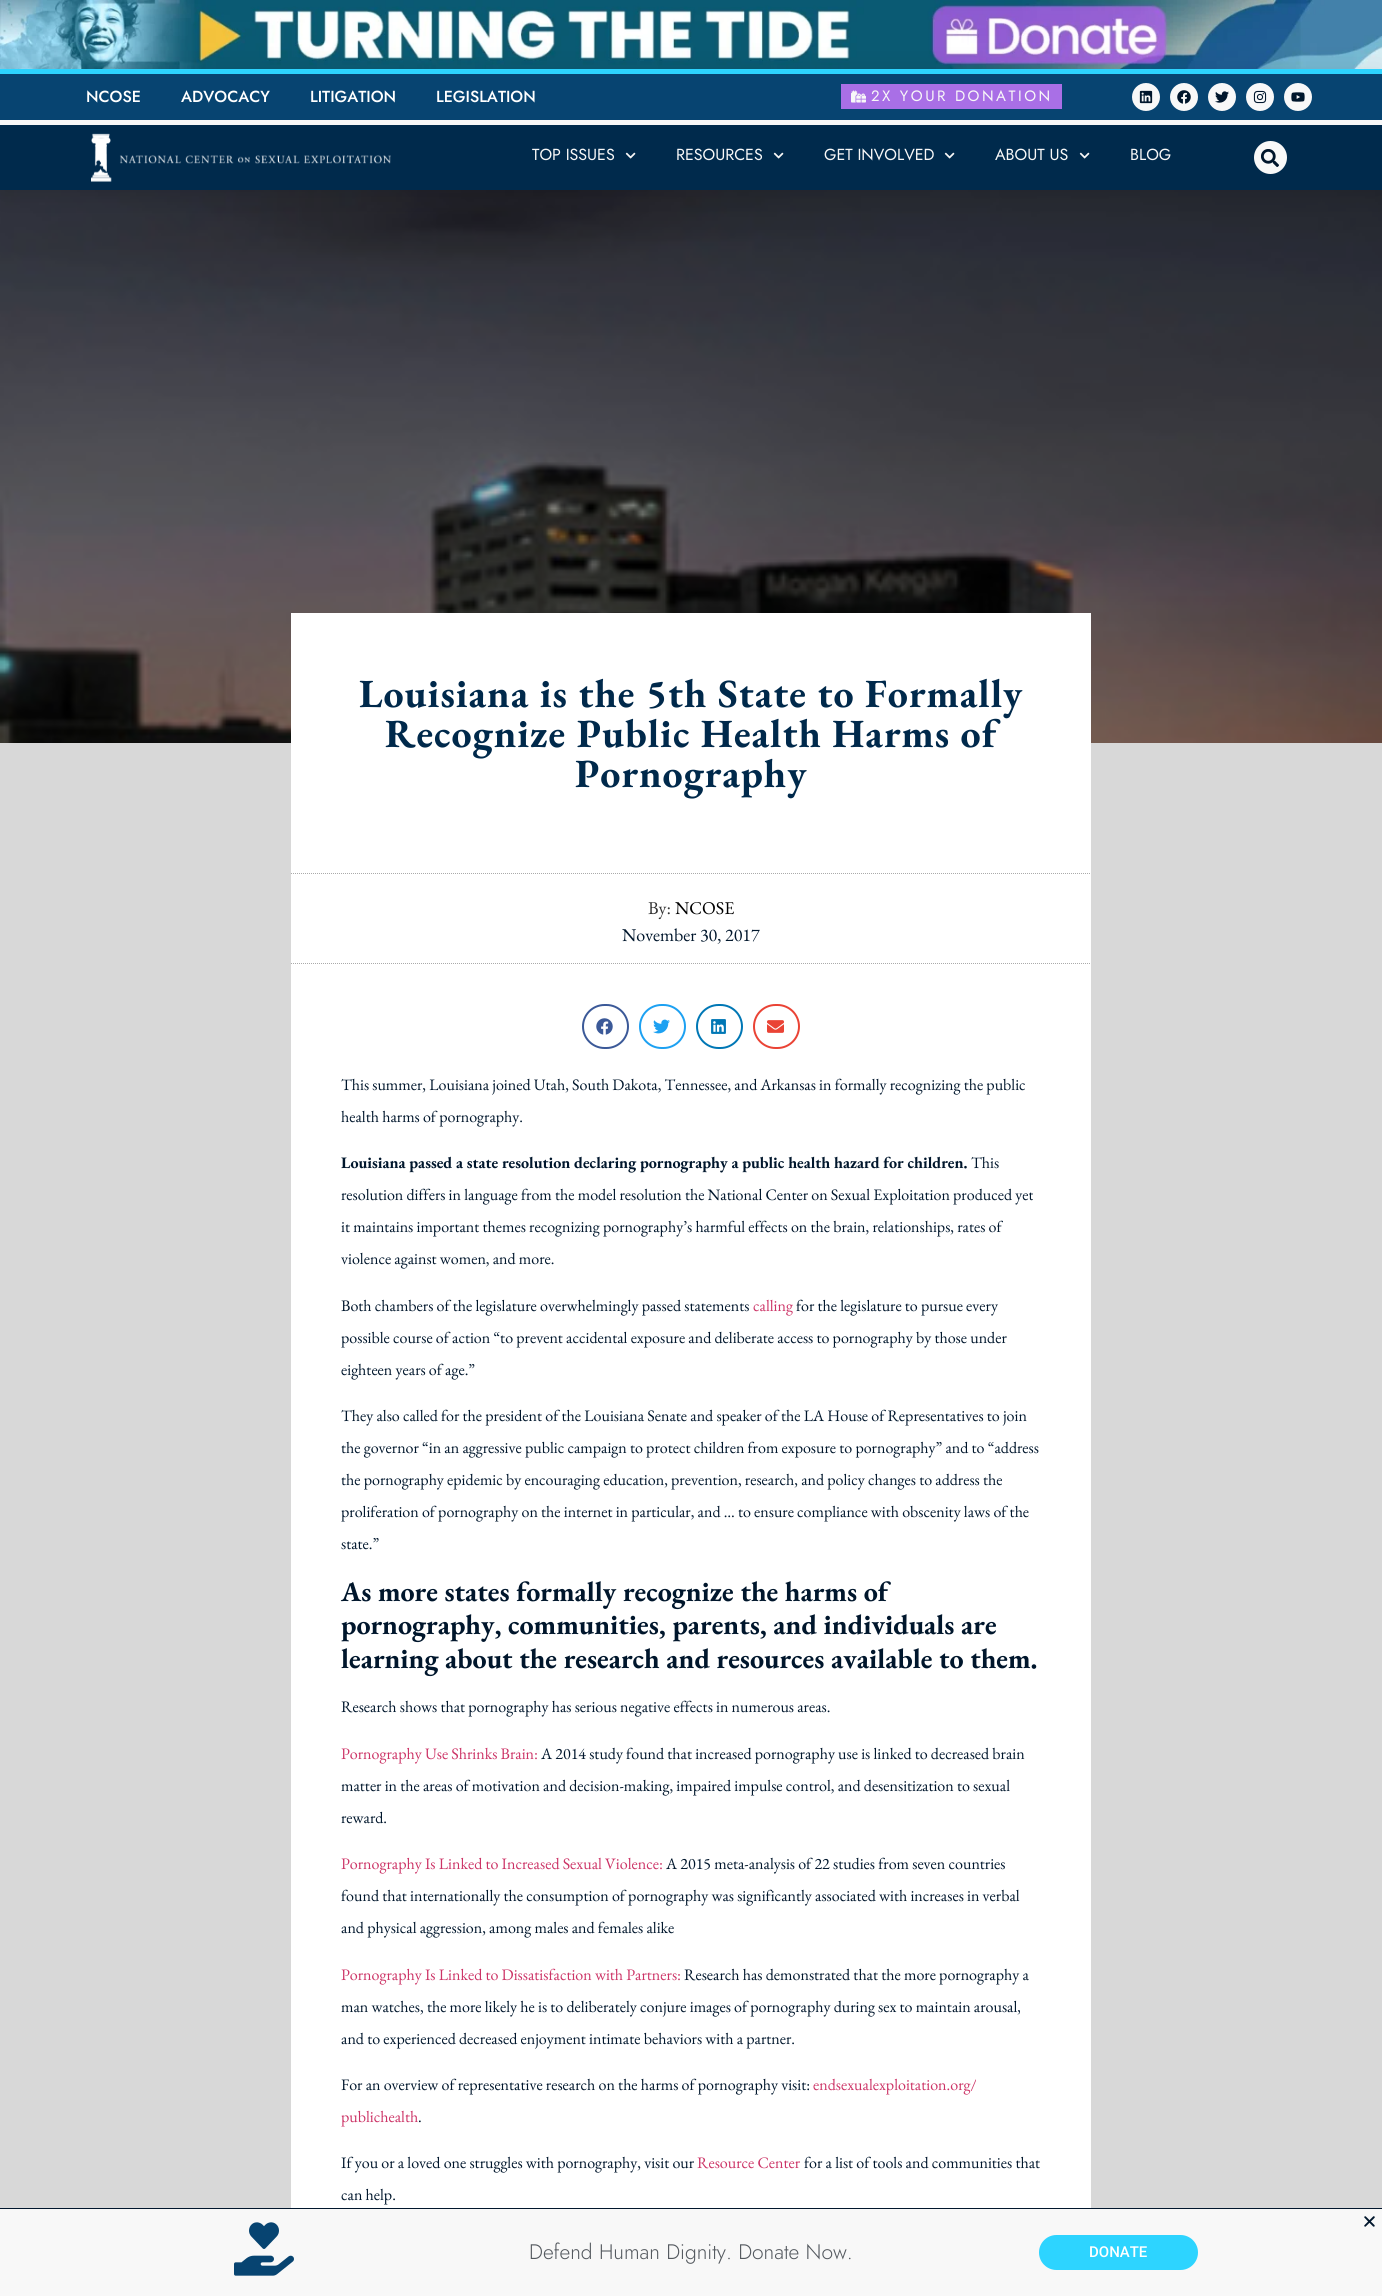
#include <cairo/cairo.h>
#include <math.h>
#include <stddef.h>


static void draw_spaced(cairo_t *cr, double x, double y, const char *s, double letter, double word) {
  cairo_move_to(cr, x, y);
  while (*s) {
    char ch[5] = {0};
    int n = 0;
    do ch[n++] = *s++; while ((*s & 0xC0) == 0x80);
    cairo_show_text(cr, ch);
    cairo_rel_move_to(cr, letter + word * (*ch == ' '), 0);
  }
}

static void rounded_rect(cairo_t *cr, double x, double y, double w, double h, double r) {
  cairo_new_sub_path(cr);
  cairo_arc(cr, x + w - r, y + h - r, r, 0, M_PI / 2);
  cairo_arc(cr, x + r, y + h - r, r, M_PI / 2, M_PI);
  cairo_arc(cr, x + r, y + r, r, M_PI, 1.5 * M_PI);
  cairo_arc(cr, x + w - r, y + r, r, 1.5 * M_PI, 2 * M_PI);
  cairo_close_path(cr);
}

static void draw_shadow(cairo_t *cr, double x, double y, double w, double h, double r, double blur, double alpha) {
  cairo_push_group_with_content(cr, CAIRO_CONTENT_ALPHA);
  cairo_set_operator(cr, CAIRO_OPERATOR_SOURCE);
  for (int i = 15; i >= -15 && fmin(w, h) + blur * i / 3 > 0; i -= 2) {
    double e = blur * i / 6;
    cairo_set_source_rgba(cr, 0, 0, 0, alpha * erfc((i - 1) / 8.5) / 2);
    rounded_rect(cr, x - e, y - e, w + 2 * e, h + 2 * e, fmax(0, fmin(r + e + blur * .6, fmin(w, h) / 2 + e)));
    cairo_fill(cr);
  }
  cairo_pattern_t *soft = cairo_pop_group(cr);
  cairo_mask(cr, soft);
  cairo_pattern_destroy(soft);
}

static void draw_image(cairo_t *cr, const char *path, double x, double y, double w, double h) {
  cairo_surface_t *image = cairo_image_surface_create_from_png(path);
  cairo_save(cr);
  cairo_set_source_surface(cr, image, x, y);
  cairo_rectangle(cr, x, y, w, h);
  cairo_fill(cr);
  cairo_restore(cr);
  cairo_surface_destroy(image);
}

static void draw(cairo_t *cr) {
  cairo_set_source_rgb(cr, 216 / 255.0, 216 / 255.0, 216 / 255.0);
  cairo_paint(cr);
  draw_image(cr, "images/1.png", 0, 0, 1382, 69);
  draw_image(cr, "images/11.png", 0, 190, 1382, 553);
  cairo_set_source_rgb(cr, 0, 0, 0);
  draw_shadow(cr, 0, 74, 1382, 121, 0, 15, 0.1);
  cairo_set_source_rgb(cr, 7 / 255.0, 68 / 255.0, 113 / 255.0);
  cairo_rectangle(cr, 0, 74, 1382, 46);
  cairo_fill(cr);
  cairo_set_source_rgb(cr, 45 / 255.0, 212 / 255.0, 1);
  cairo_rectangle(cr, 0, 69, 1382, 5);
  cairo_fill(cr);
  cairo_set_source_rgb(cr, 169 / 255.0, 111 / 255.0, 230 / 255.0);
  cairo_rectangle(cr, 841, 84, 221, 25);
  cairo_fill(cr);
  draw_image(cr, "images/2.png", 851, 90, 15, 13);
  cairo_set_source_rgb(cr, 248 / 255.0, 248 / 255.0, 248 / 255.0);
  cairo_arc(cr, 1146, 97, 14, 0, 2 * M_PI);
  cairo_fill(cr);
  draw_image(cr, "images/3.png", 1139, 90, 14, 14);
  cairo_arc(cr, 1184, 97, 14, 0, 2 * M_PI);
  cairo_fill(cr);
  draw_image(cr, "images/4.png", 1177, 90, 14, 14);
  cairo_arc(cr, 1222, 97, 14, 0, 2 * M_PI);
  cairo_fill(cr);
  draw_image(cr, "images/5.png", 1215, 91, 14, 12);
  cairo_arc(cr, 1260, 97, 14, 0, 2 * M_PI);
  cairo_fill(cr);
  draw_image(cr, "images/6.png", 1253, 90, 14, 14);
  cairo_arc(cr, 1298, 97, 14, 0, 2 * M_PI);
  cairo_fill(cr);
  draw_image(cr, "images/7.png", 1291, 92, 14, 10);
  cairo_set_source_rgb(cr, 0, 42 / 255.0, 76 / 255.0);
  cairo_rectangle(cr, 0, 125, 1382, 65);
  cairo_fill(cr);
  cairo_set_source_rgb(cr, 248 / 255.0, 248 / 255.0, 248 / 255.0);
  cairo_rectangle(cr, 0, 120, 1382, 5);
  cairo_fill(cr);
  draw_image(cr, "images/8.png", 91, 133, 300, 49);
  draw_image(cr, "images/9.png", 625, 152, 11, 7);
  draw_image(cr, "images/9.png", 773, 152, 11, 7);
  draw_image(cr, "images/9.png", 944, 152, 11, 7);
  draw_image(cr, "images/9.png", 1079, 152, 11, 7);
  cairo_arc(cr, 1270.5, 157.5, 16.5, 0, 2 * M_PI);
  cairo_fill(cr);
  draw_image(cr, "images/10.png", 1261, 149, 18, 18);
  cairo_set_source_rgb(cr, 1, 1, 1);
  cairo_rectangle(cr, 291, 613, 800, 1595);
  cairo_fill(cr);
  cairo_new_path(cr);
  cairo_move_to(cr, 291, 873.5);
  cairo_line_to(cr, 1091, 873.5);
  cairo_set_source_rgb(cr, 170 / 255.0, 170 / 255.0, 170 / 255.0);
  cairo_set_line_width(cr, 1);
  cairo_set_dash(cr, (double[]){1, 1}, 2, 0);
  cairo_stroke(cr);
  cairo_new_path(cr);
  cairo_move_to(cr, 291, 963.5);
  cairo_line_to(cr, 1091, 963.5);
  cairo_stroke(cr);
  rounded_rect(cr, 583, 1005, 45, 43, 21.5);
  cairo_set_source_rgb(cr, 59 / 255.0, 89 / 255.0, 152 / 255.0);
  cairo_set_line_width(cr, 2);
  cairo_set_dash(cr, NULL, 0, 0);
  cairo_stroke(cr);
  draw_image(cr, "images/12.png", 596, 1018, 17, 17);
  rounded_rect(cr, 640, 1005, 45, 43, 21.5);
  cairo_set_source_rgb(cr, 29 / 255.0, 161 / 255.0, 242 / 255.0);
  cairo_stroke(cr);
  draw_image(cr, "images/13.png", 653, 1019, 17, 15);
  rounded_rect(cr, 697, 1005, 45, 43, 21.5);
  cairo_set_source_rgb(cr, 0, 119 / 255.0, 181 / 255.0);
  cairo_stroke(cr);
  draw_image(cr, "images/14.png", 711, 1019, 15, 15);
  rounded_rect(cr, 754, 1005, 45, 43, 21.5);
  cairo_set_source_rgb(cr, 234 / 255.0, 67 / 255.0, 53 / 255.0);
  cairo_stroke(cr);
  draw_image(cr, "images/15.png", 767, 1020, 17, 13);
  cairo_set_source_rgb(cr, 248 / 255.0, 248 / 255.0, 248 / 255.0);
  cairo_rectangle(cr, 0, 2209, 1382, 87);
  cairo_fill(cr);
  cairo_set_source_rgb(cr, 0, 22 / 255.0, 44 / 255.0);
  cairo_rectangle(cr, 0, 2208, 1382, 1);
  cairo_fill(cr);
  draw_image(cr, "images/16.png", 1364, 2216, 11, 11);
  draw_image(cr, "images/17.png", 234, 2222, 60, 54);
  cairo_set_source_rgb(cr, 45 / 255.0, 212 / 255.0, 1);
  rounded_rect(cr, 1039, 2235, 159, 35, 17.5);
  cairo_fill(cr);
  cairo_select_font_face(cr, "Jost Medium", CAIRO_FONT_SLANT_NORMAL, CAIRO_FONT_WEIGHT_NORMAL);
  cairo_set_font_size(cr, 16);
  cairo_set_source_rgb(cr, 1, 1, 1);
  cairo_move_to(cr, 86, 102);
  cairo_show_text(cr, "NCOSE");
  cairo_move_to(cr, 181, 102);
  cairo_show_text(cr, "ADVOCACY");
  cairo_move_to(cr, 310, 102);
  cairo_show_text(cr, "LITIGATION");
  cairo_move_to(cr, 436, 102);
  cairo_show_text(cr, "LEGISLATION");
  cairo_select_font_face(cr, "Jost", CAIRO_FONT_SLANT_NORMAL, CAIRO_FONT_WEIGHT_NORMAL);
  cairo_set_font_size(cr, 15);
  cairo_set_source_rgb(cr, 248 / 255.0, 248 / 255.0, 248 / 255.0);
  draw_spaced(cr, 871, 101, "2X YOUR DONATION", 2.5, 0);
  cairo_set_font_size(cr, 16);
  cairo_move_to(cr, 532, 160);
  cairo_show_text(cr, "TOP ISSUES");
  cairo_move_to(cr, 676, 160);
  cairo_show_text(cr, "RESOURCES");
  cairo_move_to(cr, 824, 160);
  cairo_show_text(cr, "GET INVOLVED");
  cairo_move_to(cr, 995, 160);
  cairo_show_text(cr, "ABOUT US");
  cairo_move_to(cr, 1130, 160);
  cairo_show_text(cr, "BLOG");
  cairo_select_font_face(cr, "EB Garamond", CAIRO_FONT_SLANT_NORMAL, CAIRO_FONT_WEIGHT_BOLD);
  cairo_set_font_size(cr, 40);
  cairo_set_source_rgb(cr, 0, 41 / 255.0, 75 / 255.0);
  draw_spaced(cr, 359, 707, "Louisiana is the 5th State to Formally", 1, 0);
  draw_spaced(cr, 385, 747, "Recognize Public Health Harms of", 1, 0);
  draw_spaced(cr, 575, 787, "Pornography", 1, 0);
  cairo_select_font_face(cr, "EB Garamond", CAIRO_FONT_SLANT_NORMAL, CAIRO_FONT_WEIGHT_NORMAL);
  cairo_set_font_size(cr, 18);
  cairo_set_source_rgb(cr, 51 / 255.0, 51 / 255.0, 51 / 255.0);
  cairo_move_to(cr, 648, 914);
  cairo_show_text(cr, "By:");
  cairo_set_source_rgb(cr, 0, 0, 0);
  cairo_move_to(cr, 675, 914);
  cairo_show_text(cr, "NCOSE");
  cairo_set_source_rgb(cr, 0, 22 / 255.0, 44 / 255.0);
  cairo_move_to(cr, 622, 941);
  cairo_show_text(cr, "November 30, 2017");
  cairo_set_font_size(cr, 16);
  cairo_move_to(cr, 341, 1090);
  cairo_show_text(cr, "This summer, Louisiana joined Utah, South Dakota, Tennessee, and Arkansas in formally recognizing the public");
  cairo_move_to(cr, 341, 1122);
  cairo_show_text(cr, "health harms of pornography.");
  cairo_select_font_face(cr, "EB Garamond", CAIRO_FONT_SLANT_NORMAL, CAIRO_FONT_WEIGHT_BOLD);
  cairo_move_to(cr, 341, 1168);
  cairo_show_text(cr, "Louisiana passed a state resolution declaring pornography a public health hazard for children.");
  cairo_select_font_face(cr, "EB Garamond", CAIRO_FONT_SLANT_NORMAL, CAIRO_FONT_WEIGHT_NORMAL);
  cairo_move_to(cr, 971, 1168);
  cairo_show_text(cr, "This");
  cairo_move_to(cr, 341, 1200);
  cairo_show_text(cr, "resolution differs in language from the model resolution the National Center on Sexual Exploitation produced yet");
  cairo_move_to(cr, 341, 1232);
  cairo_show_text(cr, "it maintains important themes recognizing pornography’s harmful effects on the brain, relationships, rates of");
  cairo_move_to(cr, 341, 1264);
  cairo_show_text(cr, "violence against women, and more.");
  cairo_move_to(cr, 341, 1311);
  cairo_show_text(cr, "Both chambers of the legislature overwhelmingly passed statements");
  cairo_set_source_rgb(cr, 204 / 255.0, 51 / 255.0, 102 / 255.0);
  cairo_move_to(cr, 753, 1311);
  cairo_show_text(cr, "calling");
  cairo_set_source_rgb(cr, 0, 22 / 255.0, 44 / 255.0);
  cairo_move_to(cr, 796, 1311);
  cairo_show_text(cr, "for the legislature to pursue every");
  cairo_move_to(cr, 341, 1343);
  cairo_show_text(cr, "possible course of action “to prevent accidental exposure and deliberate access to pornography by those under");
  cairo_move_to(cr, 341, 1375);
  cairo_show_text(cr, "eighteen years of age.”");
  cairo_move_to(cr, 341, 1421);
  cairo_show_text(cr, "They also called for the president of the Louisiana Senate and speaker of the LA House of Representatives to join");
  cairo_move_to(cr, 341, 1453);
  cairo_show_text(cr, "the governor “in an aggressive public campaign to protect children from exposure to pornography” and to “address");
  cairo_move_to(cr, 341, 1485);
  cairo_show_text(cr, "the pornography epidemic by encouraging education, prevention, research, and policy changes to address the");
  cairo_move_to(cr, 341, 1517);
  cairo_show_text(cr, "proliferation of pornography on the internet in particular, and … to ensure compliance with obscenity laws of the");
  cairo_move_to(cr, 341, 1549);
  cairo_show_text(cr, "state.”");
  cairo_select_font_face(cr, "EB Garamond", CAIRO_FONT_SLANT_NORMAL, CAIRO_FONT_WEIGHT_BOLD);
  cairo_set_font_size(cr, 28);
  cairo_move_to(cr, 341, 1601);
  cairo_show_text(cr, "As more states formally recognize the harms of");
  cairo_move_to(cr, 341, 1634);
  cairo_show_text(cr, "pornography, communities, parents, and individuals are");
  cairo_move_to(cr, 341, 1668);
  cairo_show_text(cr, "learning about the research and resources available to them.");
  cairo_select_font_face(cr, "EB Garamond", CAIRO_FONT_SLANT_NORMAL, CAIRO_FONT_WEIGHT_NORMAL);
  cairo_set_font_size(cr, 16);
  cairo_move_to(cr, 341, 1712);
  cairo_show_text(cr, "Research shows that pornography has serious negative effects in numerous areas.");
  cairo_set_source_rgb(cr, 204 / 255.0, 51 / 255.0, 102 / 255.0);
  cairo_move_to(cr, 341, 1759);
  cairo_show_text(cr, "Pornography Use Shrinks Brain:");
  cairo_set_source_rgb(cr, 0, 22 / 255.0, 44 / 255.0);
  cairo_move_to(cr, 541, 1759);
  cairo_show_text(cr, "A 2014 study found that increased pornography use is linked to decreased brain");
  cairo_move_to(cr, 341, 1791);
  cairo_show_text(cr, "matter in the areas of motivation and decision-making, impaired impulse control, and desensitization to sexual");
  cairo_move_to(cr, 341, 1823);
  cairo_show_text(cr, "reward.");
  cairo_set_source_rgb(cr, 204 / 255.0, 51 / 255.0, 102 / 255.0);
  cairo_move_to(cr, 341, 1869);
  cairo_show_text(cr, "Pornography Is Linked to Increased Sexual Violence:");
  cairo_set_source_rgb(cr, 0, 22 / 255.0, 44 / 255.0);
  cairo_move_to(cr, 666, 1869);
  cairo_show_text(cr, "A 2015 meta-analysis of 22 studies from seven countries");
  cairo_move_to(cr, 341, 1901);
  cairo_show_text(cr, "found that internationally the consumption of pornography was significantly associated with increases in verbal");
  cairo_move_to(cr, 341, 1933);
  cairo_show_text(cr, "and physical aggression, among males and females alike");
  cairo_set_source_rgb(cr, 204 / 255.0, 51 / 255.0, 102 / 255.0);
  cairo_move_to(cr, 341, 1980);
  cairo_show_text(cr, "Pornography Is Linked to Dissatisfaction with Partners:");
  cairo_set_source_rgb(cr, 0, 22 / 255.0, 44 / 255.0);
  cairo_move_to(cr, 684, 1980);
  cairo_show_text(cr, "Research has demonstrated that the more pornography a");
  cairo_move_to(cr, 341, 2012);
  cairo_show_text(cr, "man watches, the more likely he is to deliberately conjure images of pornography during sex to maintain arousal,");
  cairo_move_to(cr, 341, 2044);
  cairo_show_text(cr, "and to experienced decreased enjoyment intimate behaviors with a partner.");
  cairo_move_to(cr, 341, 2090);
  cairo_show_text(cr, "For an overview of representative research on the harms of pornography visit:");
  cairo_set_source_rgb(cr, 204 / 255.0, 51 / 255.0, 102 / 255.0);
  cairo_move_to(cr, 813, 2090);
  cairo_show_text(cr, "endsexualexploitation.org/");
  cairo_move_to(cr, 341, 2122);
  cairo_show_text(cr, "publichealth");
  cairo_set_source_rgb(cr, 0, 22 / 255.0, 44 / 255.0);
  cairo_move_to(cr, 418, 2122);
  cairo_show_text(cr, ".");
  cairo_move_to(cr, 341, 2168);
  cairo_show_text(cr, "If you or a loved one struggles with pornography, visit our");
  cairo_set_source_rgb(cr, 204 / 255.0, 51 / 255.0, 102 / 255.0);
  cairo_move_to(cr, 697, 2168);
  cairo_show_text(cr, "Resource Center");
  cairo_set_source_rgb(cr, 0, 22 / 255.0, 44 / 255.0);
  cairo_move_to(cr, 804, 2168);
  cairo_show_text(cr, "for a list of tools and communities that");
  cairo_move_to(cr, 341, 2200);
  cairo_show_text(cr, "can help.");
  cairo_select_font_face(cr, "Jost Light", CAIRO_FONT_SLANT_NORMAL, CAIRO_FONT_WEIGHT_NORMAL);
  cairo_set_font_size(cr, 21);
  cairo_set_source_rgb(cr, 84 / 255.0, 89 / 255.0, 95 / 255.0);
  cairo_move_to(cr, 529, 2259);
  cairo_show_text(cr, "Defend Human Dignity. Donate Now.");
  cairo_select_font_face(cr, "Roboto Medium", CAIRO_FONT_SLANT_NORMAL, CAIRO_FONT_WEIGHT_NORMAL);
  cairo_set_font_size(cr, 15);
  cairo_set_source_rgb(cr, 1, 1, 1);
  cairo_move_to(cr, 1089, 2257);
  cairo_show_text(cr, "DONATE");
}

int main(void) {
  cairo_surface_t *surface = cairo_image_surface_create(CAIRO_FORMAT_RGB24, 1382, 2296);
  cairo_t *cr = cairo_create(surface);
  cairo_font_options_t *options = cairo_font_options_create();
  cairo_font_options_set_hint_metrics(options, CAIRO_HINT_METRICS_OFF);
  cairo_font_options_set_hint_style(options, CAIRO_HINT_STYLE_NONE);
  cairo_set_font_options(cr, options);
  cairo_set_miter_limit(cr, 4);
  draw(cr);
  cairo_surface_write_to_png(surface, "out.png");
  cairo_font_options_destroy(options);
  cairo_destroy(cr);
  cairo_surface_destroy(surface);
  return 0;
}
